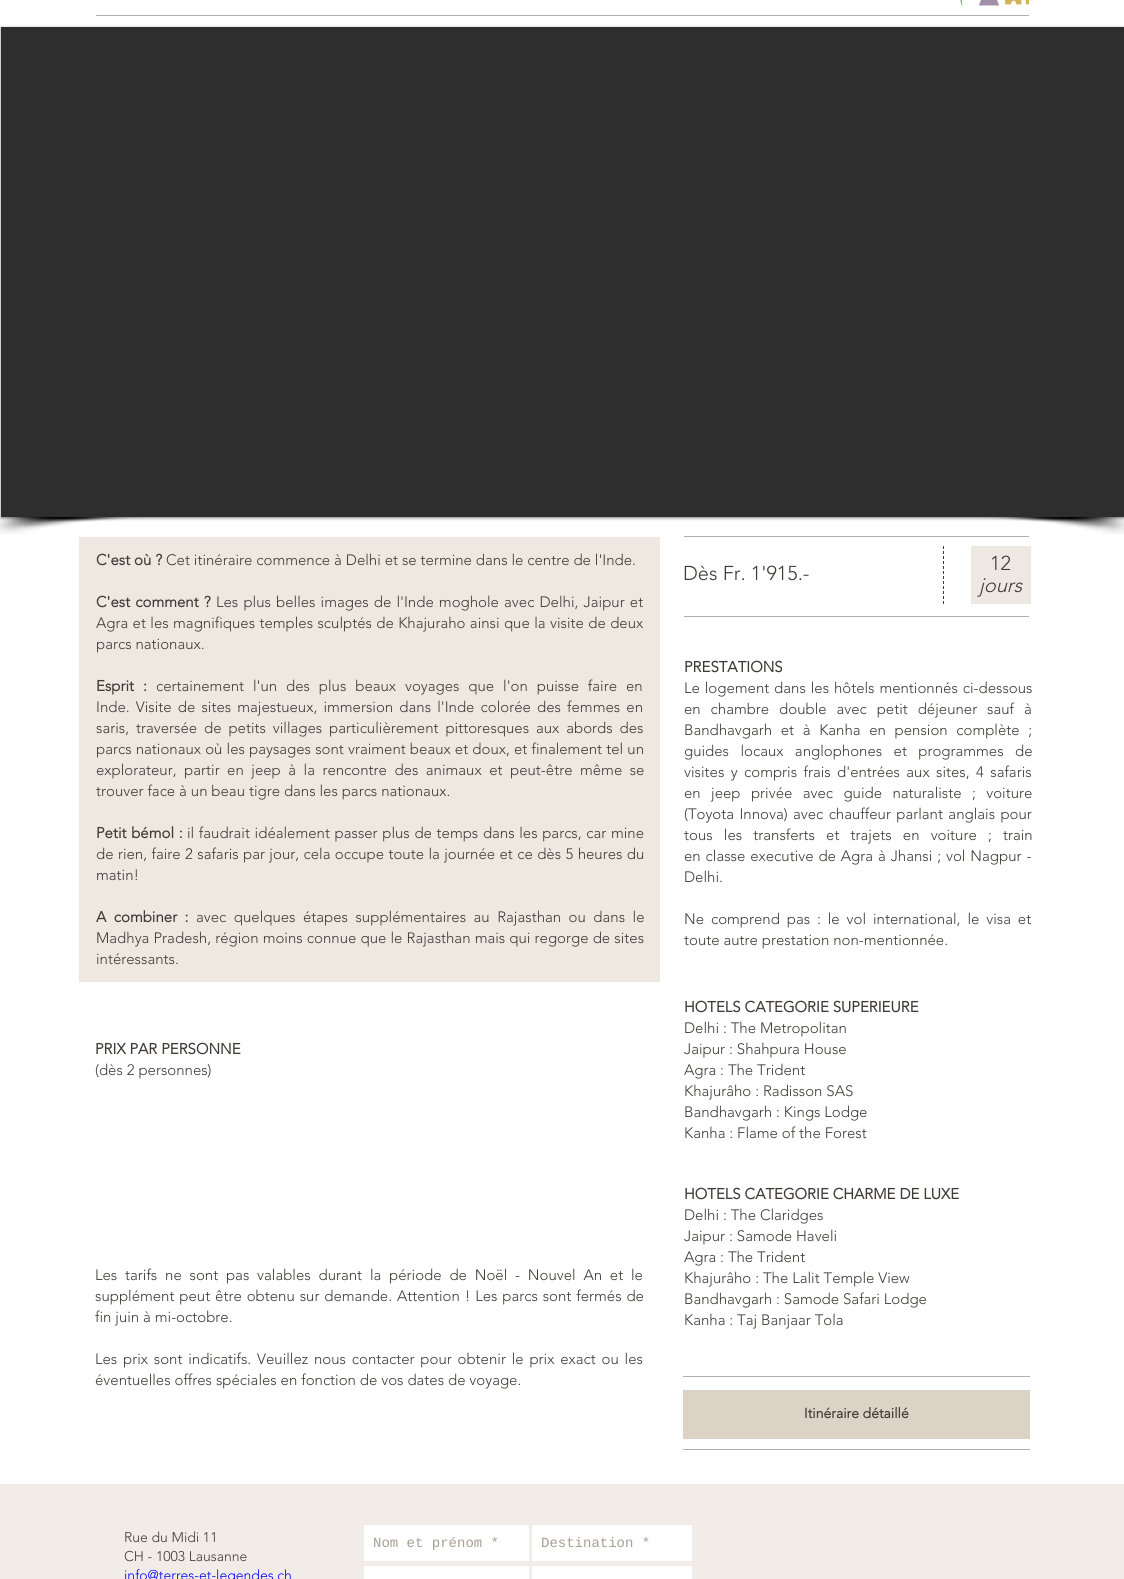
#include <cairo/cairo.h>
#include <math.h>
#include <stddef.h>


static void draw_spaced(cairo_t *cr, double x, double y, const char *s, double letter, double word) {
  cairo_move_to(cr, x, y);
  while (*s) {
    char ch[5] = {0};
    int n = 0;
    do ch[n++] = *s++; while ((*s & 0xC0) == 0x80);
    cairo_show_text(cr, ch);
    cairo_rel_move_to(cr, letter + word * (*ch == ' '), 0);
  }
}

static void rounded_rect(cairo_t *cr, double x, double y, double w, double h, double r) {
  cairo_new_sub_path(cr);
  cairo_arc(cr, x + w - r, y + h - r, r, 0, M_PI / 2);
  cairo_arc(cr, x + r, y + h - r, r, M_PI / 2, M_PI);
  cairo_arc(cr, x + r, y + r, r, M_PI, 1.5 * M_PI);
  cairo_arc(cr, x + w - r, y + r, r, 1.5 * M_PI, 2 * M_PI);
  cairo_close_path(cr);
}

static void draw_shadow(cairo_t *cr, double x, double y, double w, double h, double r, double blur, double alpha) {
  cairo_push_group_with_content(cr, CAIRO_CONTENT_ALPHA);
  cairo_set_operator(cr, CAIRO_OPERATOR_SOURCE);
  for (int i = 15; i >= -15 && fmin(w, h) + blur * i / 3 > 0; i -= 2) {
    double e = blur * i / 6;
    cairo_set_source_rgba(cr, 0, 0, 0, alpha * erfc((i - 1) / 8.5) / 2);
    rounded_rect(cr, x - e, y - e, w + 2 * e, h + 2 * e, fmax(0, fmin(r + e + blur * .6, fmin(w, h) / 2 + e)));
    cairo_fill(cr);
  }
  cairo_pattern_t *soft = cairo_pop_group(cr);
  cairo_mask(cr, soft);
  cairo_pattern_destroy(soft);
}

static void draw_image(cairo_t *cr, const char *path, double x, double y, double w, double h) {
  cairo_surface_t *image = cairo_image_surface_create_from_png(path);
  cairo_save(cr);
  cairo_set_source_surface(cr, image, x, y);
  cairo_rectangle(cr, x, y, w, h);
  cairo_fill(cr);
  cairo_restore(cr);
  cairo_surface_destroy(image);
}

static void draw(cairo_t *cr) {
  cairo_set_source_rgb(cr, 1, 1, 1);
  cairo_paint(cr);
  draw_image(cr, "images/1.png", 960, 0, 3, 6);
  draw_image(cr, "images/2.png", 979, 0, 20, 6);
  draw_image(cr, "images/3.png", 1005, 0, 24, 5);
  cairo_set_source_rgb(cr, 178 / 255.0, 176 / 255.0, 173 / 255.0);
  cairo_rectangle(cr, 96, 15, 933, 1);
  cairo_fill(cr);
  cairo_set_source_rgb(cr, 0, 0, 0);
  draw_shadow(cr, 1, 28, 1123, 490, 0, 1.5, 0.5);
  cairo_set_source_rgb(cr, 47 / 255.0, 46 / 255.0, 46 / 255.0);
  cairo_rectangle(cr, 1, 27, 1123, 490);
  cairo_fill(cr);
  draw_image(cr, "images/4.png", 0, 517, 146, 18);
  draw_image(cr, "images/5.png", 979, 517, 145, 18);
  cairo_set_source_rgb(cr, 178 / 255.0, 176 / 255.0, 173 / 255.0);
  cairo_rectangle(cr, 684, 536, 345, 1);
  cairo_fill(cr);
  cairo_set_source_rgb(cr, 238 / 255.0, 232 / 255.0, 225 / 255.0);
  cairo_rectangle(cr, 79, 537, 581, 445);
  cairo_fill(cr);
  cairo_new_path(cr);
  cairo_move_to(cr, 943.5, 546);
  cairo_line_to(cr, 943.5, 604);
  cairo_set_source_rgb(cr, 64 / 255.0, 59 / 255.0, 53 / 255.0);
  cairo_set_line_width(cr, 1);
  cairo_set_dash(cr, (double[]){3, 2}, 2, 0);
  cairo_stroke(cr);
  cairo_set_source_rgb(cr, 238 / 255.0, 232 / 255.0, 226 / 255.0);
  cairo_rectangle(cr, 971, 546, 60, 58);
  cairo_fill(cr);
  cairo_set_source_rgb(cr, 178 / 255.0, 176 / 255.0, 173 / 255.0);
  cairo_rectangle(cr, 684, 616, 345, 1);
  cairo_fill(cr);
  cairo_rectangle(cr, 683, 1376, 347, 1);
  cairo_fill(cr);
  cairo_set_source_rgb(cr, 221 / 255.0, 210 / 255.0, 198 / 255.0);
  cairo_rectangle(cr, 683, 1390, 347, 49);
  cairo_fill(cr);
  cairo_set_source_rgb(cr, 178 / 255.0, 176 / 255.0, 173 / 255.0);
  cairo_rectangle(cr, 683, 1449, 347, 1);
  cairo_fill(cr);
  cairo_set_source_rgb(cr, 241 / 255.0, 236 / 255.0, 231 / 255.0);
  cairo_rectangle(cr, 0, 1484, 1124, 95);
  cairo_fill(cr);
  cairo_set_source_rgb(cr, 1, 1, 1);
  cairo_rectangle(cr, 364, 1525, 165, 36);
  cairo_fill(cr);
  cairo_rectangle(cr, 532, 1525, 160, 36);
  cairo_fill(cr);
  cairo_rectangle(cr, 364, 1566, 165, 13);
  cairo_fill(cr);
  cairo_rectangle(cr, 532, 1566, 160, 13);
  cairo_fill(cr);
  cairo_select_font_face(cr, "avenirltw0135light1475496", CAIRO_FONT_SLANT_NORMAL, CAIRO_FONT_WEIGHT_BOLD);
  cairo_set_font_size(cr, 15);
  cairo_set_source_rgb(cr, 64 / 255.0, 59 / 255.0, 53 / 255.0);
  cairo_move_to(cr, 96, 565);
  cairo_show_text(cr, "C'est où ?");
  cairo_select_font_face(cr, "avenirltw0135light1475496 Light", CAIRO_FONT_SLANT_NORMAL, CAIRO_FONT_WEIGHT_NORMAL);
  cairo_move_to(cr, 166, 565);
  cairo_show_text(cr, "Cet itinéraire commence à Delhi et se termine dans le centre de l'Inde.");
  cairo_select_font_face(cr, "avenirltw0135light1475496", CAIRO_FONT_SLANT_NORMAL, CAIRO_FONT_WEIGHT_BOLD);
  draw_spaced(cr, 96, 607, "C'est comment ?", 0, 1.25);
  cairo_select_font_face(cr, "avenirltw0135light1475496 Light", CAIRO_FONT_SLANT_NORMAL, CAIRO_FONT_WEIGHT_NORMAL);
  draw_spaced(cr, 216, 607, "Les plus belles images de l'Inde moghole avec Delhi, Jaipur et", 0, 1.25);
  draw_spaced(cr, 96, 628, "Agra et les magnifiques temples sculptés de Khajuraho ainsi que la visite de deux", 0, 0.5);
  cairo_move_to(cr, 96, 649);
  cairo_show_text(cr, "parcs nationaux.");
  cairo_select_font_face(cr, "avenirltw0135light1475496", CAIRO_FONT_SLANT_NORMAL, CAIRO_FONT_WEIGHT_BOLD);
  draw_spaced(cr, 96, 691, "Esprit :", 0, 5);
  cairo_select_font_face(cr, "avenirltw0135light1475496 Light", CAIRO_FONT_SLANT_NORMAL, CAIRO_FONT_WEIGHT_NORMAL);
  draw_spaced(cr, 156, 691, "certainement l'un des plus beaux voyages que l'on puisse faire en", 0, 5);
  draw_spaced(cr, 96, 712, "Inde. Visite de sites majestueux, immersion dans l'Inde colorée des femmes en", 0, 2.25);
  draw_spaced(cr, 96, 733, "saris, traversée de petits villages particulièrement pittoresques aux abords des", 0, 3);
  draw_spaced(cr, 96, 754, "parcs nationaux où les paysages sont vraiment beaux et doux, et finalement tel un", 0, 0.25);
  draw_spaced(cr, 96, 775, "explorateur, partir en jeep à la rencontre des animaux et peut-être même se", 0, 3.6);
  cairo_move_to(cr, 96, 796);
  cairo_show_text(cr, "trouver face à un beau tigre dans les parcs nationaux.");
  cairo_select_font_face(cr, "avenirltw0135light1475496", CAIRO_FONT_SLANT_NORMAL, CAIRO_FONT_WEIGHT_BOLD);
  draw_spaced(cr, 96, 838, "Petit bémol :", 0, 0.75);
  cairo_select_font_face(cr, "avenirltw0135light1475496 Light", CAIRO_FONT_SLANT_NORMAL, CAIRO_FONT_WEIGHT_NORMAL);
  draw_spaced(cr, 187, 838, "il faudrait idéalement passer plus de temps dans les parcs, car mine", 0, 0.75);
  draw_spaced(cr, 96, 859, "de rien, faire 2 safaris par jour, cela occupe toute la journée et ce dès 5 heures du", 0, 0.5);
  cairo_move_to(cr, 96, 880);
  cairo_show_text(cr, "matin!");
  cairo_select_font_face(cr, "avenirltw0135light1475496", CAIRO_FONT_SLANT_NORMAL, CAIRO_FONT_WEIGHT_BOLD);
  draw_spaced(cr, 96, 922, "A combiner :", 0, 3.6);
  cairo_select_font_face(cr, "avenirltw0135light1475496 Light", CAIRO_FONT_SLANT_NORMAL, CAIRO_FONT_WEIGHT_NORMAL);
  draw_spaced(cr, 196, 922, "avec quelques étapes supplémentaires au Rajasthan ou dans le", 0, 3.6);
  draw_spaced(cr, 96, 943, "Madhya Pradesh, région moins connue que le Rajasthan mais qui regorge de sites", 0, 0.25);
  cairo_move_to(cr, 96, 964);
  cairo_show_text(cr, "intéressants.");
  cairo_set_font_size(cr, 20);
  cairo_move_to(cr, 683, 580);
  cairo_show_text(cr, "Dès Fr. 1'915.-");
  cairo_move_to(cr, 990, 570);
  cairo_show_text(cr, "12");
  cairo_select_font_face(cr, "avenirltw0135light1475496 Light", CAIRO_FONT_SLANT_ITALIC, CAIRO_FONT_WEIGHT_NORMAL);
  cairo_move_to(cr, 979, 592);
  cairo_show_text(cr, "jours");
  cairo_select_font_face(cr, "avenirltw0135light1475496", CAIRO_FONT_SLANT_NORMAL, CAIRO_FONT_WEIGHT_BOLD);
  cairo_set_font_size(cr, 15);
  cairo_move_to(cr, 684, 672);
  cairo_show_text(cr, "PRESTATIONS");
  cairo_select_font_face(cr, "avenirltw0135light1475496 Light", CAIRO_FONT_SLANT_NORMAL, CAIRO_FONT_WEIGHT_NORMAL);
  draw_spaced(cr, 684, 693, "Le logement dans les hôtels mentionnés ci-dessous", 0, 1);
  draw_spaced(cr, 684, 714, "en chambre double avec petit déjeuner sauf à", 0, 6);
  draw_spaced(cr, 684, 735, "Bandhavgarh et à Kanha en pension complète ;", 0, 4.75);
  draw_spaced(cr, 684, 756, "guides locaux anglophones et programmes de", 0, 7.5);
  draw_spaced(cr, 684, 777, "visites y compris frais d'entrées aux sites, 4 safaris", 0, 2.5);
  draw_spaced(cr, 684, 798, "en jeep privée avec guide naturaliste ; voiture", 0, 6.5);
  draw_spaced(cr, 684, 819, "(Toyota Innova) avec chauffeur parlant anglais pour", 0, 1.5);
  draw_spaced(cr, 684, 840, "tous les transferts et trajets en voiture ; train", 0, 7.25);
  draw_spaced(cr, 684, 861, "en classe executive de Agra à Jhansi ; vol Nagpur -", 0, 1);
  cairo_move_to(cr, 684, 882);
  cairo_show_text(cr, "Delhi.");
  draw_spaced(cr, 684, 924, "Ne comprend pas : le vol international, le visa et", 0, 3);
  cairo_move_to(cr, 684, 945);
  cairo_show_text(cr, "toute autre prestation non-mentionnée.");
  cairo_select_font_face(cr, "avenirltw0135light1475496", CAIRO_FONT_SLANT_NORMAL, CAIRO_FONT_WEIGHT_BOLD);
  cairo_move_to(cr, 95, 1054);
  cairo_show_text(cr, "PRIX PAR PERSONNE");
  cairo_select_font_face(cr, "avenirltw0135light1475496 Light", CAIRO_FONT_SLANT_NORMAL, CAIRO_FONT_WEIGHT_NORMAL);
  cairo_move_to(cr, 95, 1075);
  cairo_show_text(cr, "(dès 2 personnes)");
  cairo_select_font_face(cr, "avenirltw0135light1475496", CAIRO_FONT_SLANT_NORMAL, CAIRO_FONT_WEIGHT_BOLD);
  cairo_move_to(cr, 684, 1012);
  cairo_show_text(cr, "HOTELS CATEGORIE SUPERIEURE");
  cairo_select_font_face(cr, "avenirltw0135light1475496 Light", CAIRO_FONT_SLANT_NORMAL, CAIRO_FONT_WEIGHT_NORMAL);
  cairo_move_to(cr, 684, 1033);
  cairo_show_text(cr, "Delhi : The Metropolitan");
  cairo_move_to(cr, 684, 1054);
  cairo_show_text(cr, "Jaipur : Shahpura House");
  cairo_move_to(cr, 684, 1075);
  cairo_show_text(cr, "Agra : The Trident");
  cairo_move_to(cr, 684, 1096);
  cairo_show_text(cr, "Khajurâho : Radisson SAS");
  cairo_move_to(cr, 684, 1117);
  cairo_show_text(cr, "Bandhavgarh : Kings Lodge");
  cairo_move_to(cr, 684, 1138);
  cairo_show_text(cr, "Kanha : Flame of the Forest");
  draw_spaced(cr, 95, 1280, "Les tarifs ne sont pas valables durant la période de Noël - Nouvel An et le", 0, 3.9);
  draw_spaced(cr, 95, 1301, "supplément peut être obtenu sur demande. Attention ! Les parcs sont fermés de", 0, 1);
  cairo_move_to(cr, 95, 1322);
  cairo_show_text(cr, "fin juin à mi-octobre.");
  draw_spaced(cr, 95, 1364, "Les prix sont indicatifs. Veuillez nous contacter pour obtenir le prix exact ou les", 0, 1.9);
  cairo_move_to(cr, 95, 1385);
  cairo_show_text(cr, "éventuelles offres spéciales en fonction de vos dates de voyage.");
  cairo_select_font_face(cr, "avenirltw0135light1475496", CAIRO_FONT_SLANT_NORMAL, CAIRO_FONT_WEIGHT_BOLD);
  cairo_move_to(cr, 684, 1199);
  cairo_show_text(cr, "HOTELS CATEGORIE CHARME DE LUXE");
  cairo_select_font_face(cr, "avenirltw0135light1475496 Light", CAIRO_FONT_SLANT_NORMAL, CAIRO_FONT_WEIGHT_NORMAL);
  cairo_move_to(cr, 684, 1220);
  cairo_show_text(cr, "Delhi : The Claridges");
  cairo_move_to(cr, 684, 1241);
  cairo_show_text(cr, "Jaipur : Samode Haveli");
  cairo_move_to(cr, 684, 1262);
  cairo_show_text(cr, "Agra : The Trident");
  cairo_move_to(cr, 684, 1283);
  cairo_show_text(cr, "Khajurâho : The Lalit Temple View");
  cairo_move_to(cr, 684, 1304);
  cairo_show_text(cr, "Bandhavgarh : Samode Safari Lodge");
  cairo_move_to(cr, 684, 1325);
  cairo_show_text(cr, "Kanha : Taj Banjaar Tola");
  cairo_select_font_face(cr, "avenirltw0135light1475496", CAIRO_FONT_SLANT_NORMAL, CAIRO_FONT_WEIGHT_BOLD);
  cairo_set_font_size(cr, 14);
  cairo_move_to(cr, 804, 1418);
  cairo_show_text(cr, "Itinéraire détaillé");
  cairo_select_font_face(cr, "avenirltw0135light1475496 Light", CAIRO_FONT_SLANT_NORMAL, CAIRO_FONT_WEIGHT_NORMAL);
  cairo_move_to(cr, 124, 1542);
  cairo_show_text(cr, "Rue du Midi 11");
  cairo_move_to(cr, 124, 1561);
  cairo_show_text(cr, "CH - 1003 Lausanne");
  cairo_set_source_rgb(cr, 0, 0, 1);
  cairo_move_to(cr, 124, 1580);
  cairo_show_text(cr, "info@terres-et-legendes.ch");
  cairo_select_font_face(cr, "Liberation Mono", CAIRO_FONT_SLANT_NORMAL, CAIRO_FONT_WEIGHT_NORMAL);
  cairo_set_source_rgb(cr, 168 / 255.0, 158 / 255.0, 145 / 255.0);
  cairo_move_to(cr, 373, 1547);
  cairo_show_text(cr, "Nom et prénom *");
  cairo_move_to(cr, 541, 1547);
  cairo_show_text(cr, "Destination *");
}

int main(void) {
  cairo_surface_t *surface = cairo_image_surface_create(CAIRO_FORMAT_RGB24, 1124, 1579);
  cairo_t *cr = cairo_create(surface);
  cairo_font_options_t *options = cairo_font_options_create();
  cairo_font_options_set_hint_metrics(options, CAIRO_HINT_METRICS_OFF);
  cairo_font_options_set_hint_style(options, CAIRO_HINT_STYLE_NONE);
  cairo_set_font_options(cr, options);
  cairo_set_miter_limit(cr, 4);
  draw(cr);
  cairo_surface_write_to_png(surface, "out.png");
  cairo_font_options_destroy(options);
  cairo_destroy(cr);
  cairo_surface_destroy(surface);
  return 0;
}
